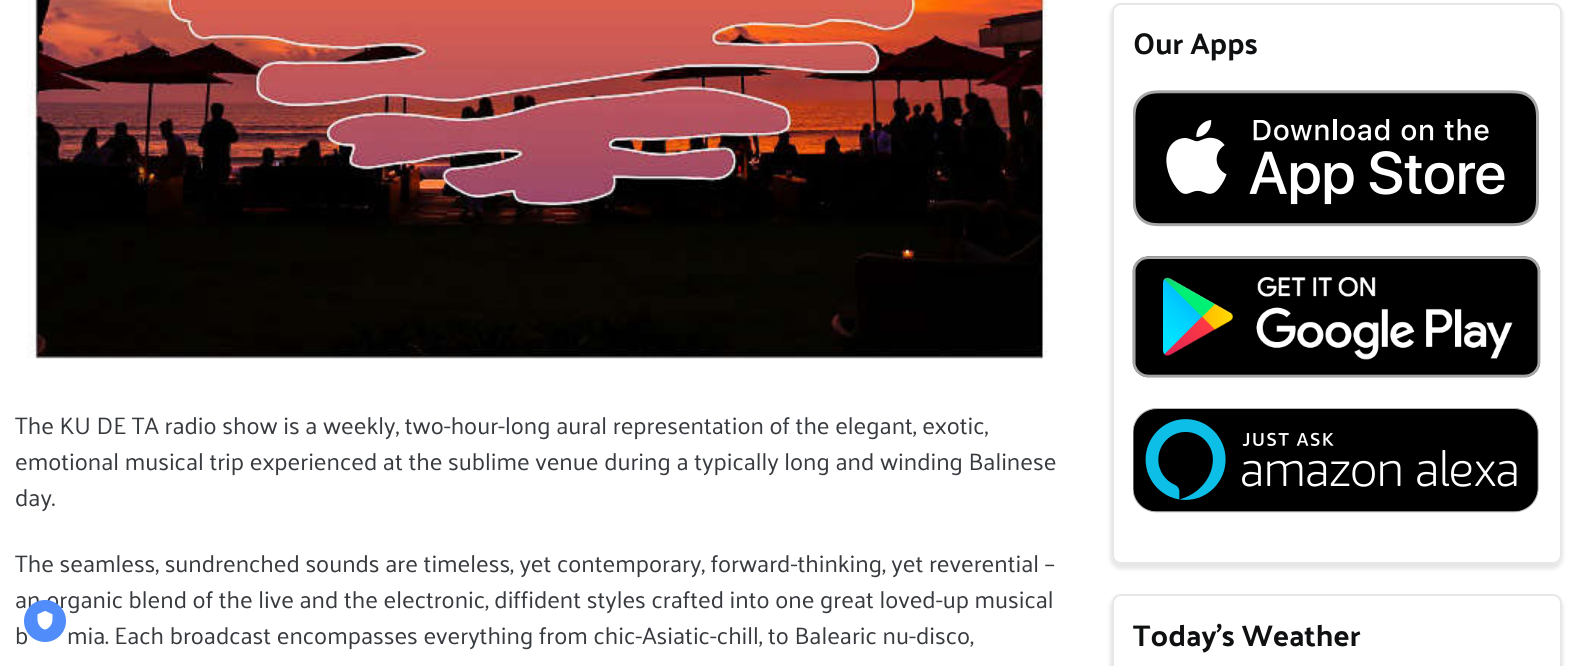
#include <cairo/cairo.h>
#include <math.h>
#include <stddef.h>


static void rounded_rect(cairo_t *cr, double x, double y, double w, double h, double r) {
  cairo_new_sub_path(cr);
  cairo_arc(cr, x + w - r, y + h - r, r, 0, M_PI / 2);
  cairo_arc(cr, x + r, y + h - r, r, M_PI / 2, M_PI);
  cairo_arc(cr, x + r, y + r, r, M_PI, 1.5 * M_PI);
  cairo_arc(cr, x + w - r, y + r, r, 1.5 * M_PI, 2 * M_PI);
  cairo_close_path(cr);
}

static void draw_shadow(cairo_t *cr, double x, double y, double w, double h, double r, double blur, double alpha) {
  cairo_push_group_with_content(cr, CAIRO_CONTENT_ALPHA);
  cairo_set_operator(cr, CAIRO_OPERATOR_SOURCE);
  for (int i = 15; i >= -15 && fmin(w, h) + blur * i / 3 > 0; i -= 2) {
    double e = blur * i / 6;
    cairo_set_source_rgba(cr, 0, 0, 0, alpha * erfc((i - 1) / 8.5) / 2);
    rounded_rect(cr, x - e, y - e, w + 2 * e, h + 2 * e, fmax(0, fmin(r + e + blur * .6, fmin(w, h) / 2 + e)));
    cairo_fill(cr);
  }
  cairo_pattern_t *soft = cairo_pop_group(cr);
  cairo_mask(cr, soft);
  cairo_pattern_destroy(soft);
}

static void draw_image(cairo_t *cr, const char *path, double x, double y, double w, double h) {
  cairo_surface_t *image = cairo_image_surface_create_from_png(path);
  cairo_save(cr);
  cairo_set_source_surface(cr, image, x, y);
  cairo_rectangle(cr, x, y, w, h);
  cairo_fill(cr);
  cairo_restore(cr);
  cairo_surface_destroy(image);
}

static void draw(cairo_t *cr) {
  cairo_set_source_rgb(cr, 1, 1, 1);
  cairo_paint(cr);
  draw_image(cr, "images/1.png", 27, 0, 1021, 359);
  cairo_save(cr);
  cairo_set_fill_rule(cr, CAIRO_FILL_RULE_EVEN_ODD);
  cairo_new_path(cr);
  cairo_move_to(cr, 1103, 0);
  cairo_line_to(cr, 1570, 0);
  cairo_line_to(cr, 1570, 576);
  cairo_line_to(cr, 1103, 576);
  cairo_close_path(cr);
  cairo_move_to(cr, 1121, 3);
  cairo_line_to(cr, 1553, 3);
  cairo_curve_to(cr, 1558, 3, 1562, 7, 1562, 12);
  cairo_line_to(cr, 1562, 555);
  cairo_curve_to(cr, 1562, 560, 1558, 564, 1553, 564);
  cairo_line_to(cr, 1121, 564);
  cairo_curve_to(cr, 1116, 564, 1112, 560, 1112, 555);
  cairo_line_to(cr, 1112, 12);
  cairo_curve_to(cr, 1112, 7, 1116, 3, 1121, 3);
  cairo_close_path(cr);
  cairo_clip(cr);
  cairo_set_source_rgb(cr, 0, 0, 0);
  draw_shadow(cr, 1110, 5, 453, 564, 11, 2, 0.1);
  cairo_restore(cr);
  rounded_rect(cr, 1113, 4, 448, 559, 8);
  cairo_set_source_rgb(cr, 232 / 255.0, 230 / 255.0, 230 / 255.0);
  cairo_stroke(cr);
  draw_image(cr, "images/2.png", 1133, 90, 406, 137);
  draw_image(cr, "images/3.png", 1132, 256, 409, 122);
  draw_image(cr, "images/4.png", 1133, 408, 406, 105);
  cairo_save(cr);
  cairo_set_fill_rule(cr, CAIRO_FILL_RULE_EVEN_ODD);
  cairo_new_path(cr);
  cairo_move_to(cr, 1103, 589);
  cairo_line_to(cr, 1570, 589);
  cairo_line_to(cr, 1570, 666);
  cairo_line_to(cr, 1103, 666);
  cairo_close_path(cr);
  cairo_move_to(cr, 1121, 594);
  cairo_line_to(cr, 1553, 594);
  cairo_curve_to(cr, 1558, 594, 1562, 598, 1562, 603);
  cairo_line_to(cr, 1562, 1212);
  cairo_curve_to(cr, 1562, 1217, 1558, 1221, 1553, 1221);
  cairo_line_to(cr, 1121, 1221);
  cairo_curve_to(cr, 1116, 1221, 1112, 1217, 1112, 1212);
  cairo_line_to(cr, 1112, 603);
  cairo_curve_to(cr, 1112, 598, 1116, 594, 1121, 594);
  cairo_close_path(cr);
  cairo_clip(cr);
  cairo_set_source_rgb(cr, 0, 0, 0);
  draw_shadow(cr, 1110, 596, 453, 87, 11, 2, 0.1);
  cairo_restore(cr);
  rounded_rect(cr, 1113, 595, 448, 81, 8);
  cairo_stroke(cr);
  cairo_select_font_face(cr, "Palanquin", CAIRO_FONT_SLANT_NORMAL, CAIRO_FONT_WEIGHT_NORMAL);
  cairo_set_font_size(cr, 24);
  cairo_set_source_rgb(cr, 55 / 255.0, 58 / 255.0, 62 / 255.0);
  cairo_move_to(cr, 15, 434);
  cairo_show_text(cr, "The KU DE TA radio show is a weekly, two-hour-long aural representation of the elegant, exotic,");
  cairo_move_to(cr, 15, 470);
  cairo_show_text(cr, "emotional musical trip experienced at the sublime venue during a typically long and winding Balinese");
  cairo_move_to(cr, 15, 506);
  cairo_show_text(cr, "day.");
  cairo_move_to(cr, 15, 572);
  cairo_show_text(cr, "The seamless, sundrenched sounds are timeless, yet contemporary, forward-thinking, yet reverential –");
  cairo_move_to(cr, 15, 608);
  cairo_show_text(cr, "an organic blend of the live and the electronic, diffident styles crafted into one great loved-up musical");
  cairo_move_to(cr, 15, 644);
  cairo_show_text(cr, "b");
  cairo_move_to(cr, 67, 644);
  cairo_show_text(cr, "mia. Each broadcast encompasses everything from chic-Asiatic-chill, to Balearic nu-disco,");
  cairo_select_font_face(cr, "Palanquin", CAIRO_FONT_SLANT_NORMAL, CAIRO_FONT_WEIGHT_BOLD);
  cairo_set_font_size(cr, 30);
  cairo_set_source_rgb(cr, 15 / 255.0, 16 / 255.0, 17 / 255.0);
  cairo_move_to(cr, 1133, 54);
  cairo_show_text(cr, "Our Apps");
  cairo_move_to(cr, 1133, 646);
  cairo_show_text(cr, "Today's Weather");
  cairo_set_source_rgb(cr, 80 / 255.0, 141 / 255.0, 250 / 255.0);
  cairo_new_path(cr);
  cairo_arc(cr, 45, 621, 21, 0, 2 * M_PI);
  cairo_fill(cr);
  draw_image(cr, "images/5.png", 37, 611, 16, 19);
}

int main(void) {
  cairo_surface_t *surface = cairo_image_surface_create(CAIRO_FORMAT_RGB24, 1576, 666);
  cairo_t *cr = cairo_create(surface);
  cairo_font_options_t *options = cairo_font_options_create();
  cairo_font_options_set_hint_metrics(options, CAIRO_HINT_METRICS_OFF);
  cairo_font_options_set_hint_style(options, CAIRO_HINT_STYLE_NONE);
  cairo_set_font_options(cr, options);
  cairo_set_miter_limit(cr, 4);
  draw(cr);
  cairo_surface_write_to_png(surface, "out.png");
  cairo_font_options_destroy(options);
  cairo_destroy(cr);
  cairo_surface_destroy(surface);
  return 0;
}
